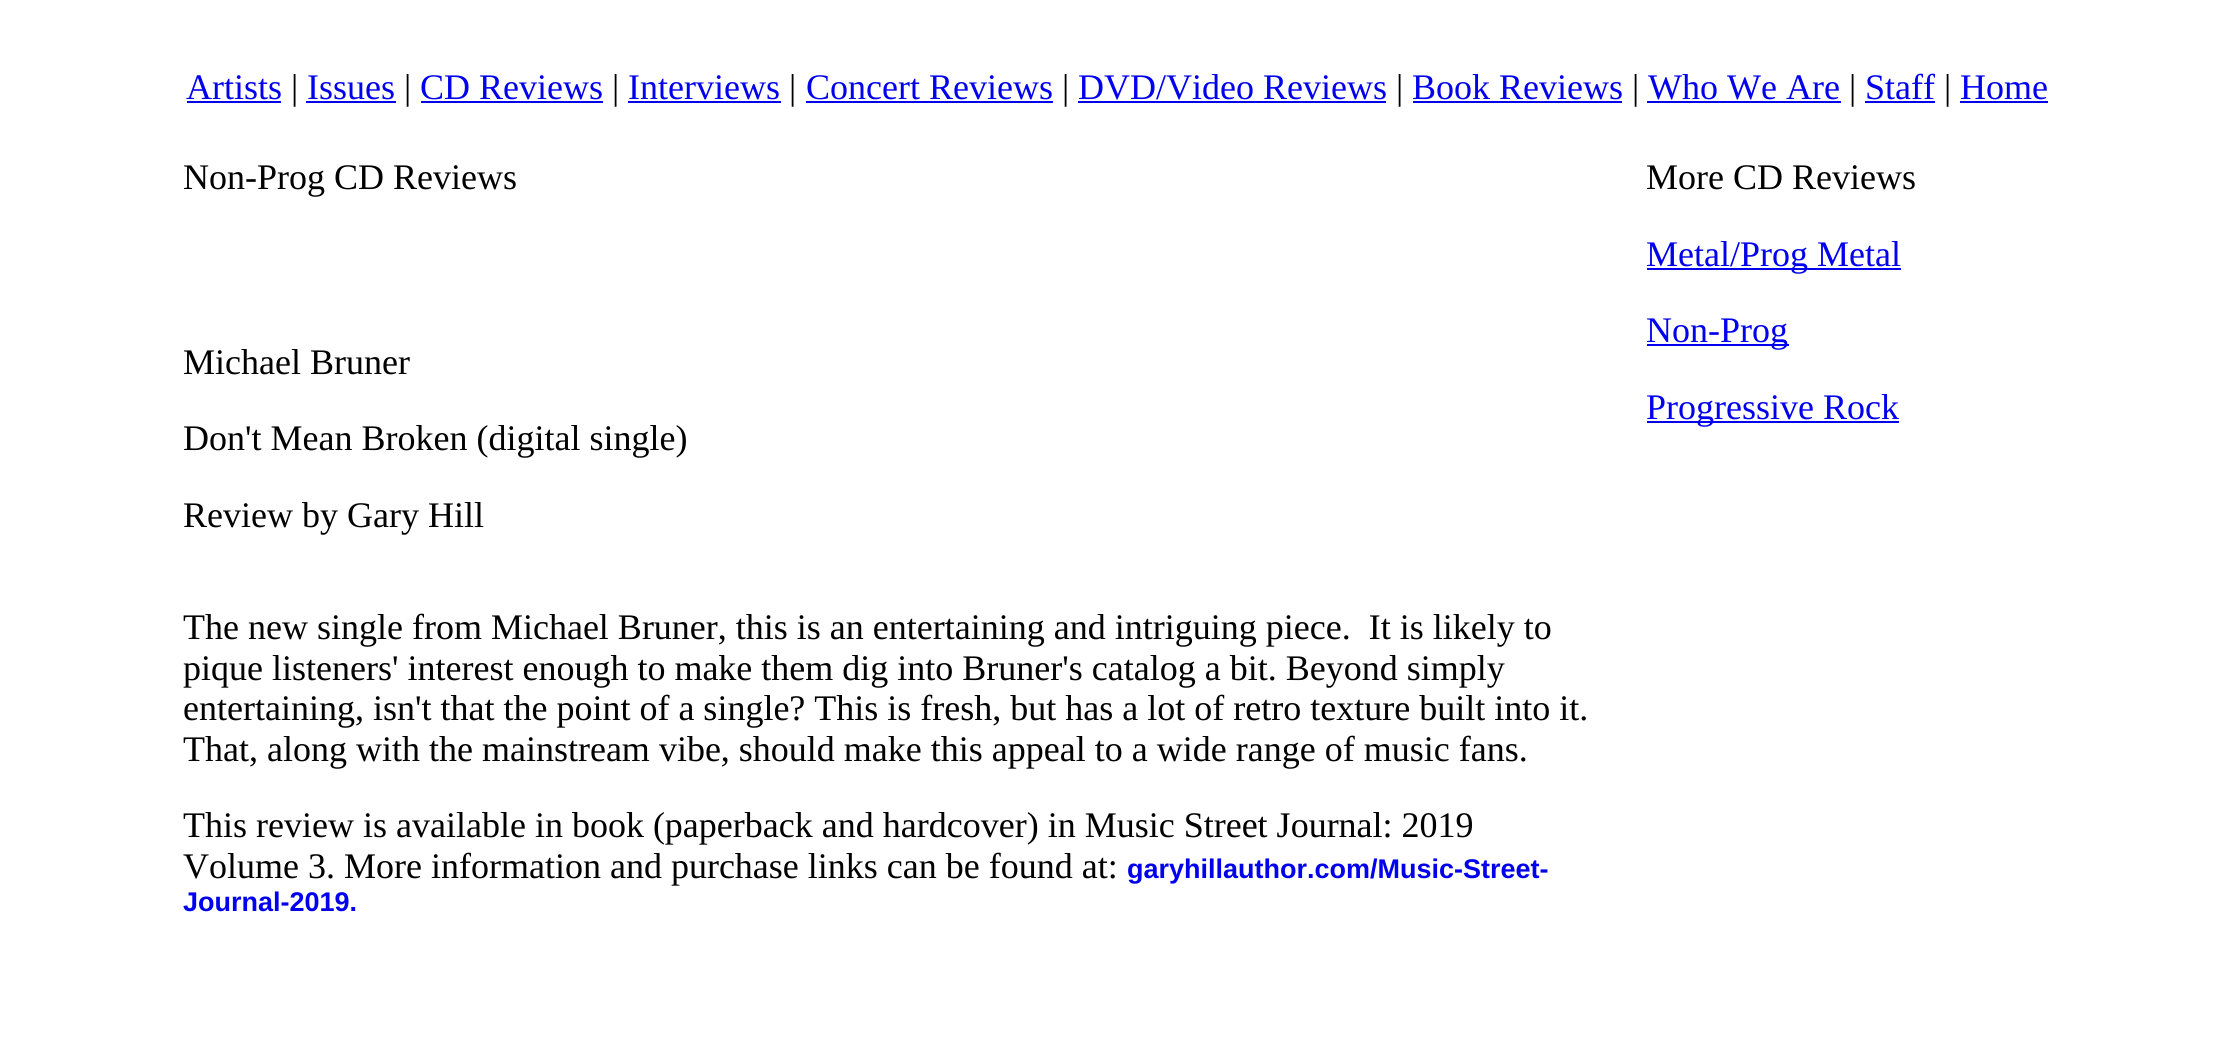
#include <cairo/cairo.h>
#include <math.h>
#include <stddef.h>


static void draw(cairo_t *cr) {
  cairo_set_source_rgb(cr, 1, 1, 1);
  cairo_paint(cr);
  cairo_set_source_rgb(cr, 0, 0, 238 / 255.0);
  cairo_rectangle(cr, 187, 101, 94, 2);
  cairo_fill(cr);
  cairo_rectangle(cr, 306, 101, 90, 2);
  cairo_fill(cr);
  cairo_rectangle(cr, 421, 101, 182, 2);
  cairo_fill(cr);
  cairo_rectangle(cr, 628, 101, 153, 2);
  cairo_fill(cr);
  cairo_rectangle(cr, 806, 101, 247, 2);
  cairo_fill(cr);
  cairo_rectangle(cr, 1078, 101, 308, 2);
  cairo_fill(cr);
  cairo_rectangle(cr, 1413, 101, 209, 2);
  cairo_fill(cr);
  cairo_rectangle(cr, 1647, 101, 194, 2);
  cairo_fill(cr);
  cairo_rectangle(cr, 1865, 101, 70, 2);
  cairo_fill(cr);
  cairo_rectangle(cr, 1960, 101, 88, 2);
  cairo_fill(cr);
  cairo_rectangle(cr, 1647, 268, 254, 2);
  cairo_fill(cr);
  cairo_rectangle(cr, 1647, 344, 142, 2);
  cairo_fill(cr);
  cairo_rectangle(cr, 1647, 421, 252, 2);
  cairo_fill(cr);
  cairo_select_font_face(cr, "Liberation Serif", CAIRO_FONT_SLANT_NORMAL, CAIRO_FONT_WEIGHT_NORMAL);
  cairo_set_font_size(cr, 36);
  cairo_move_to(cr, 186, 99);
  cairo_show_text(cr, "Artists");
  cairo_set_source_rgb(cr, 0, 0, 0);
  cairo_move_to(cr, 291, 99);
  cairo_show_text(cr, "|");
  cairo_set_source_rgb(cr, 0, 0, 238 / 255.0);
  cairo_move_to(cr, 307, 99);
  cairo_show_text(cr, "Issues");
  cairo_set_source_rgb(cr, 0, 0, 0);
  cairo_move_to(cr, 404, 99);
  cairo_show_text(cr, "|");
  cairo_set_source_rgb(cr, 0, 0, 238 / 255.0);
  cairo_move_to(cr, 420, 99);
  cairo_show_text(cr, "CD Reviews");
  cairo_set_source_rgb(cr, 0, 0, 0);
  cairo_move_to(cr, 612, 99);
  cairo_show_text(cr, "|");
  cairo_set_source_rgb(cr, 0, 0, 238 / 255.0);
  cairo_move_to(cr, 628, 99);
  cairo_show_text(cr, "Interviews");
  cairo_set_source_rgb(cr, 0, 0, 0);
  cairo_move_to(cr, 789, 99);
  cairo_show_text(cr, "|");
  cairo_set_source_rgb(cr, 0, 0, 238 / 255.0);
  cairo_move_to(cr, 806, 99);
  cairo_show_text(cr, "Concert Reviews");
  cairo_set_source_rgb(cr, 0, 0, 0);
  cairo_move_to(cr, 1062, 99);
  cairo_show_text(cr, "|");
  cairo_set_source_rgb(cr, 0, 0, 238 / 255.0);
  cairo_move_to(cr, 1078, 99);
  cairo_show_text(cr, "DVD/Video Reviews");
  cairo_set_source_rgb(cr, 0, 0, 0);
  cairo_move_to(cr, 1396, 99);
  cairo_show_text(cr, "|");
  cairo_set_source_rgb(cr, 0, 0, 238 / 255.0);
  cairo_move_to(cr, 1412, 99);
  cairo_show_text(cr, "Book Reviews");
  cairo_set_source_rgb(cr, 0, 0, 0);
  cairo_move_to(cr, 1632, 99);
  cairo_show_text(cr, "|");
  cairo_set_source_rgb(cr, 0, 0, 238 / 255.0);
  cairo_move_to(cr, 1648, 99);
  cairo_show_text(cr, "Who We Are");
  cairo_set_source_rgb(cr, 0, 0, 0);
  cairo_move_to(cr, 1849, 99);
  cairo_show_text(cr, "|");
  cairo_set_source_rgb(cr, 0, 0, 238 / 255.0);
  cairo_move_to(cr, 1865, 99);
  cairo_show_text(cr, "Staff");
  cairo_set_source_rgb(cr, 0, 0, 0);
  cairo_move_to(cr, 1944, 99);
  cairo_show_text(cr, "|");
  cairo_set_source_rgb(cr, 0, 0, 238 / 255.0);
  cairo_move_to(cr, 1960, 99);
  cairo_show_text(cr, "Home");
  cairo_set_source_rgb(cr, 0, 0, 0);
  cairo_move_to(cr, 183, 189);
  cairo_show_text(cr, "Non-Prog CD Reviews");
  cairo_move_to(cr, 183, 374);
  cairo_show_text(cr, "Michael Bruner");
  cairo_move_to(cr, 183, 450);
  cairo_show_text(cr, "Don't Mean Broken (digital single)");
  cairo_move_to(cr, 183, 527);
  cairo_show_text(cr, "Review by Gary Hill");
  cairo_move_to(cr, 183, 639);
  cairo_show_text(cr, "The new single from Michael Bruner, this is an entertaining and intriguing piece.  It is likely to");
  cairo_move_to(cr, 183, 680);
  cairo_show_text(cr, "pique listeners' interest enough to make them dig into Bruner's catalog a bit. Beyond simply");
  cairo_move_to(cr, 183, 720);
  cairo_show_text(cr, "entertaining, isn't that the point of a single? This is fresh, but has a lot of retro texture built into it.");
  cairo_move_to(cr, 183, 761);
  cairo_show_text(cr, "That, along with the mainstream vibe, should make this appeal to a wide range of music fans.");
  cairo_move_to(cr, 183, 837);
  cairo_show_text(cr, "This review is available in book (paperback and hardcover) in Music Street Journal: 2019");
  cairo_move_to(cr, 183, 878);
  cairo_show_text(cr, "Volume 3. More information and purchase links can be found at:");
  cairo_select_font_face(cr, "Liberation Sans", CAIRO_FONT_SLANT_NORMAL, CAIRO_FONT_WEIGHT_BOLD);
  cairo_set_font_size(cr, 27);
  cairo_set_source_rgb(cr, 0, 0, 238 / 255.0);
  cairo_move_to(cr, 1127, 878);
  cairo_show_text(cr, "garyhillauthor.com/Music-Street-");
  cairo_move_to(cr, 183, 911);
  cairo_show_text(cr, "Journal-2019.");
  cairo_select_font_face(cr, "Liberation Serif", CAIRO_FONT_SLANT_NORMAL, CAIRO_FONT_WEIGHT_NORMAL);
  cairo_set_font_size(cr, 36);
  cairo_set_source_rgb(cr, 0, 0, 0);
  cairo_move_to(cr, 1646, 189);
  cairo_show_text(cr, "More CD Reviews");
  cairo_set_source_rgb(cr, 0, 0, 238 / 255.0);
  cairo_move_to(cr, 1646, 266);
  cairo_show_text(cr, "Metal/Prog Metal");
  cairo_move_to(cr, 1646, 342);
  cairo_show_text(cr, "Non-Prog");
  cairo_move_to(cr, 1646, 419);
  cairo_show_text(cr, "Progressive Rock");
}

int main(void) {
  cairo_surface_t *surface = cairo_image_surface_create(CAIRO_FORMAT_RGB24, 2234, 1043);
  cairo_t *cr = cairo_create(surface);
  cairo_font_options_t *options = cairo_font_options_create();
  cairo_font_options_set_hint_metrics(options, CAIRO_HINT_METRICS_OFF);
  cairo_font_options_set_hint_style(options, CAIRO_HINT_STYLE_NONE);
  cairo_set_font_options(cr, options);
  cairo_set_miter_limit(cr, 4);
  draw(cr);
  cairo_surface_write_to_png(surface, "out.png");
  cairo_font_options_destroy(options);
  cairo_destroy(cr);
  cairo_surface_destroy(surface);
  return 0;
}
